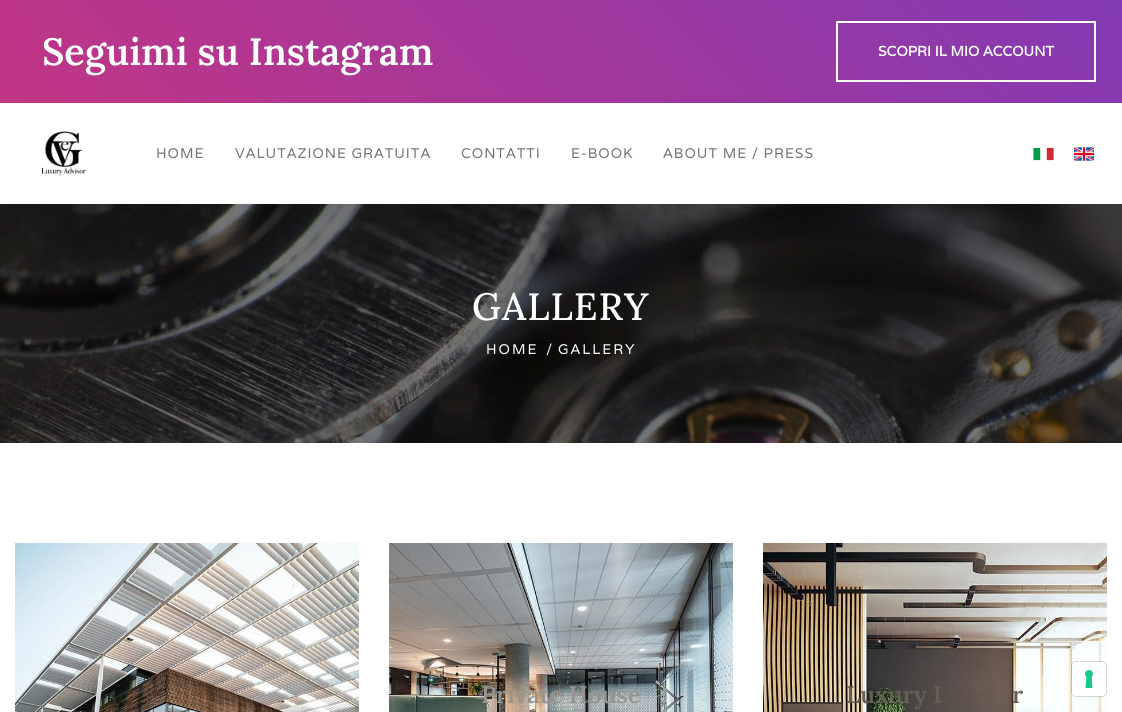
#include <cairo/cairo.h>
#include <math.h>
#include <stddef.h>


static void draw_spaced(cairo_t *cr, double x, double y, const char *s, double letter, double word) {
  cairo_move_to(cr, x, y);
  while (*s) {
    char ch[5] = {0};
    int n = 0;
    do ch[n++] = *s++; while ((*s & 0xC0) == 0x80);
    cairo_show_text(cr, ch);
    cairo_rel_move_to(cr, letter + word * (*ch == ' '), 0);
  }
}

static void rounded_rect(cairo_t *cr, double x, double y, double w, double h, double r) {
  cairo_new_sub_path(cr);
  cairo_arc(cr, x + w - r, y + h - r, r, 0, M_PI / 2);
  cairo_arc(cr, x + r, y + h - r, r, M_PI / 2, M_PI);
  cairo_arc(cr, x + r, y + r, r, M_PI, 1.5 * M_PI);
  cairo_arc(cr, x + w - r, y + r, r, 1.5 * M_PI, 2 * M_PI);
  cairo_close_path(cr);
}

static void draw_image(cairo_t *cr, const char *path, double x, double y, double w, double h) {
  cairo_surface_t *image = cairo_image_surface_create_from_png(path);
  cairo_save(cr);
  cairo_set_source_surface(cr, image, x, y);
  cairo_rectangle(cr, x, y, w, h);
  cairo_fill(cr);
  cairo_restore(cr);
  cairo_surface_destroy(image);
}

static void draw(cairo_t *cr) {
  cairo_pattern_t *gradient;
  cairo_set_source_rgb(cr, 1, 1, 1);
  cairo_paint(cr);
  gradient = cairo_pattern_create_linear(255, 358, 867, -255);
  cairo_pattern_add_color_stop_rgba(gradient, 0, 193 / 255.0, 53 / 255.0, 132 / 255.0, 1);
  cairo_pattern_add_color_stop_rgba(gradient, 1, 131 / 255.0, 58 / 255.0, 180 / 255.0, 1);
  cairo_set_source(cr, gradient);
  cairo_pattern_destroy(gradient);
  cairo_rectangle(cr, 0, 0, 1122, 103);
  cairo_fill(cr);
  cairo_rectangle(cr, 837, 22, 258, 59);
  cairo_set_source_rgb(cr, 1, 1, 1);
  cairo_stroke(cr);
  draw_image(cr, "images/1.png", 41, 131, 45, 45);
  draw_image(cr, "images/2.png", 1033, 147, 21, 14);
  draw_image(cr, "images/3.png", 1074, 147, 20, 14);
  draw_image(cr, "images/4.png", 0, 204, 1122, 239);
  draw_image(cr, "images/5.png", 15, 543, 344, 169);
  draw_image(cr, "images/6.png", 389, 543, 344, 169);
  draw_image(cr, "images/7.png", 763, 543, 344, 169);
  rounded_rect(cr, 1071.5, 661.5, 35, 35, 4.5);
  cairo_set_source_rgba(cr, 0, 0, 0, 0.15);
  cairo_set_line_width(cr, 1);
  cairo_stroke(cr);
  cairo_set_source_rgb(cr, 1, 1, 1);
  rounded_rect(cr, 1072, 662, 34, 34, 4);
  cairo_fill(cr);
  draw_image(cr, "images/8.png", 1085, 670, 8, 18);
  cairo_select_font_face(cr, "Lora SemiBold", CAIRO_FONT_SLANT_NORMAL, CAIRO_FONT_WEIGHT_NORMAL);
  cairo_set_font_size(cr, 38);
  cairo_move_to(cr, 42, 65);
  cairo_show_text(cr, "Seguimi su Instagram");
  cairo_select_font_face(cr, "Varela", CAIRO_FONT_SLANT_NORMAL, CAIRO_FONT_WEIGHT_BOLD);
  cairo_set_font_size(cr, 14);
  cairo_move_to(cr, 878, 56);
  cairo_show_text(cr, "SCOPRI IL MIO ACCOUNT");
  cairo_select_font_face(cr, "Varela", CAIRO_FONT_SLANT_NORMAL, CAIRO_FONT_WEIGHT_NORMAL);
  cairo_set_source_rgb(cr, 115 / 255.0, 115 / 255.0, 115 / 255.0);
  draw_spaced(cr, 156, 158, "HOME", 1, 0);
  draw_spaced(cr, 235, 158, "VALUTAZIONE GRATUITA", 1, 0);
  draw_spaced(cr, 461, 158, "CONTATTI", 1, 0);
  draw_spaced(cr, 571, 158, "E-BOOK", 1, 0);
  draw_spaced(cr, 663, 158, "ABOUT ME / PRESS", 1, 0);
  cairo_select_font_face(cr, "Lora Medium", CAIRO_FONT_SLANT_NORMAL, CAIRO_FONT_WEIGHT_NORMAL);
  cairo_set_font_size(cr, 38);
  cairo_set_source_rgb(cr, 1, 1, 1);
  draw_spaced(cr, 472, 320, "GALLERY", 1, 0);
  cairo_select_font_face(cr, "Varela", CAIRO_FONT_SLANT_NORMAL, CAIRO_FONT_WEIGHT_NORMAL);
  cairo_set_font_size(cr, 14);
  draw_spaced(cr, 486, 354, "HOME", 2, 0);
  cairo_set_source_rgb(cr, 229 / 255.0, 238 / 255.0, 236 / 255.0);
  draw_spaced(cr, 546, 354, "/", 2, 0);
  cairo_set_source_rgb(cr, 1, 1, 1);
  draw_spaced(cr, 558, 354, "GALLERY", 2, 0);
  cairo_select_font_face(cr, "Lora SemiBold", CAIRO_FONT_SLANT_NORMAL, CAIRO_FONT_WEIGHT_NORMAL);
  cairo_set_font_size(cr, 24);
  cairo_set_source_rgb(cr, 149 / 255.0, 148 / 255.0, 142 / 255.0);
  cairo_move_to(cr, 481, 703);
  cairo_show_text(cr, "Private House");
  cairo_set_source_rgb(cr, 101 / 255.0, 96 / 255.0, 86 / 255.0);
  cairo_move_to(cr, 846, 703);
  cairo_show_text(cr, "Luxury I");
  cairo_move_to(cr, 1012, 703);
  cairo_show_text(cr, "r");
}

int main(void) {
  cairo_surface_t *surface = cairo_image_surface_create(CAIRO_FORMAT_RGB24, 1122, 712);
  cairo_t *cr = cairo_create(surface);
  cairo_font_options_t *options = cairo_font_options_create();
  cairo_font_options_set_hint_metrics(options, CAIRO_HINT_METRICS_OFF);
  cairo_font_options_set_hint_style(options, CAIRO_HINT_STYLE_NONE);
  cairo_set_font_options(cr, options);
  cairo_set_miter_limit(cr, 4);
  draw(cr);
  cairo_surface_write_to_png(surface, "out.png");
  cairo_font_options_destroy(options);
  cairo_destroy(cr);
  cairo_surface_destroy(surface);
  return 0;
}
